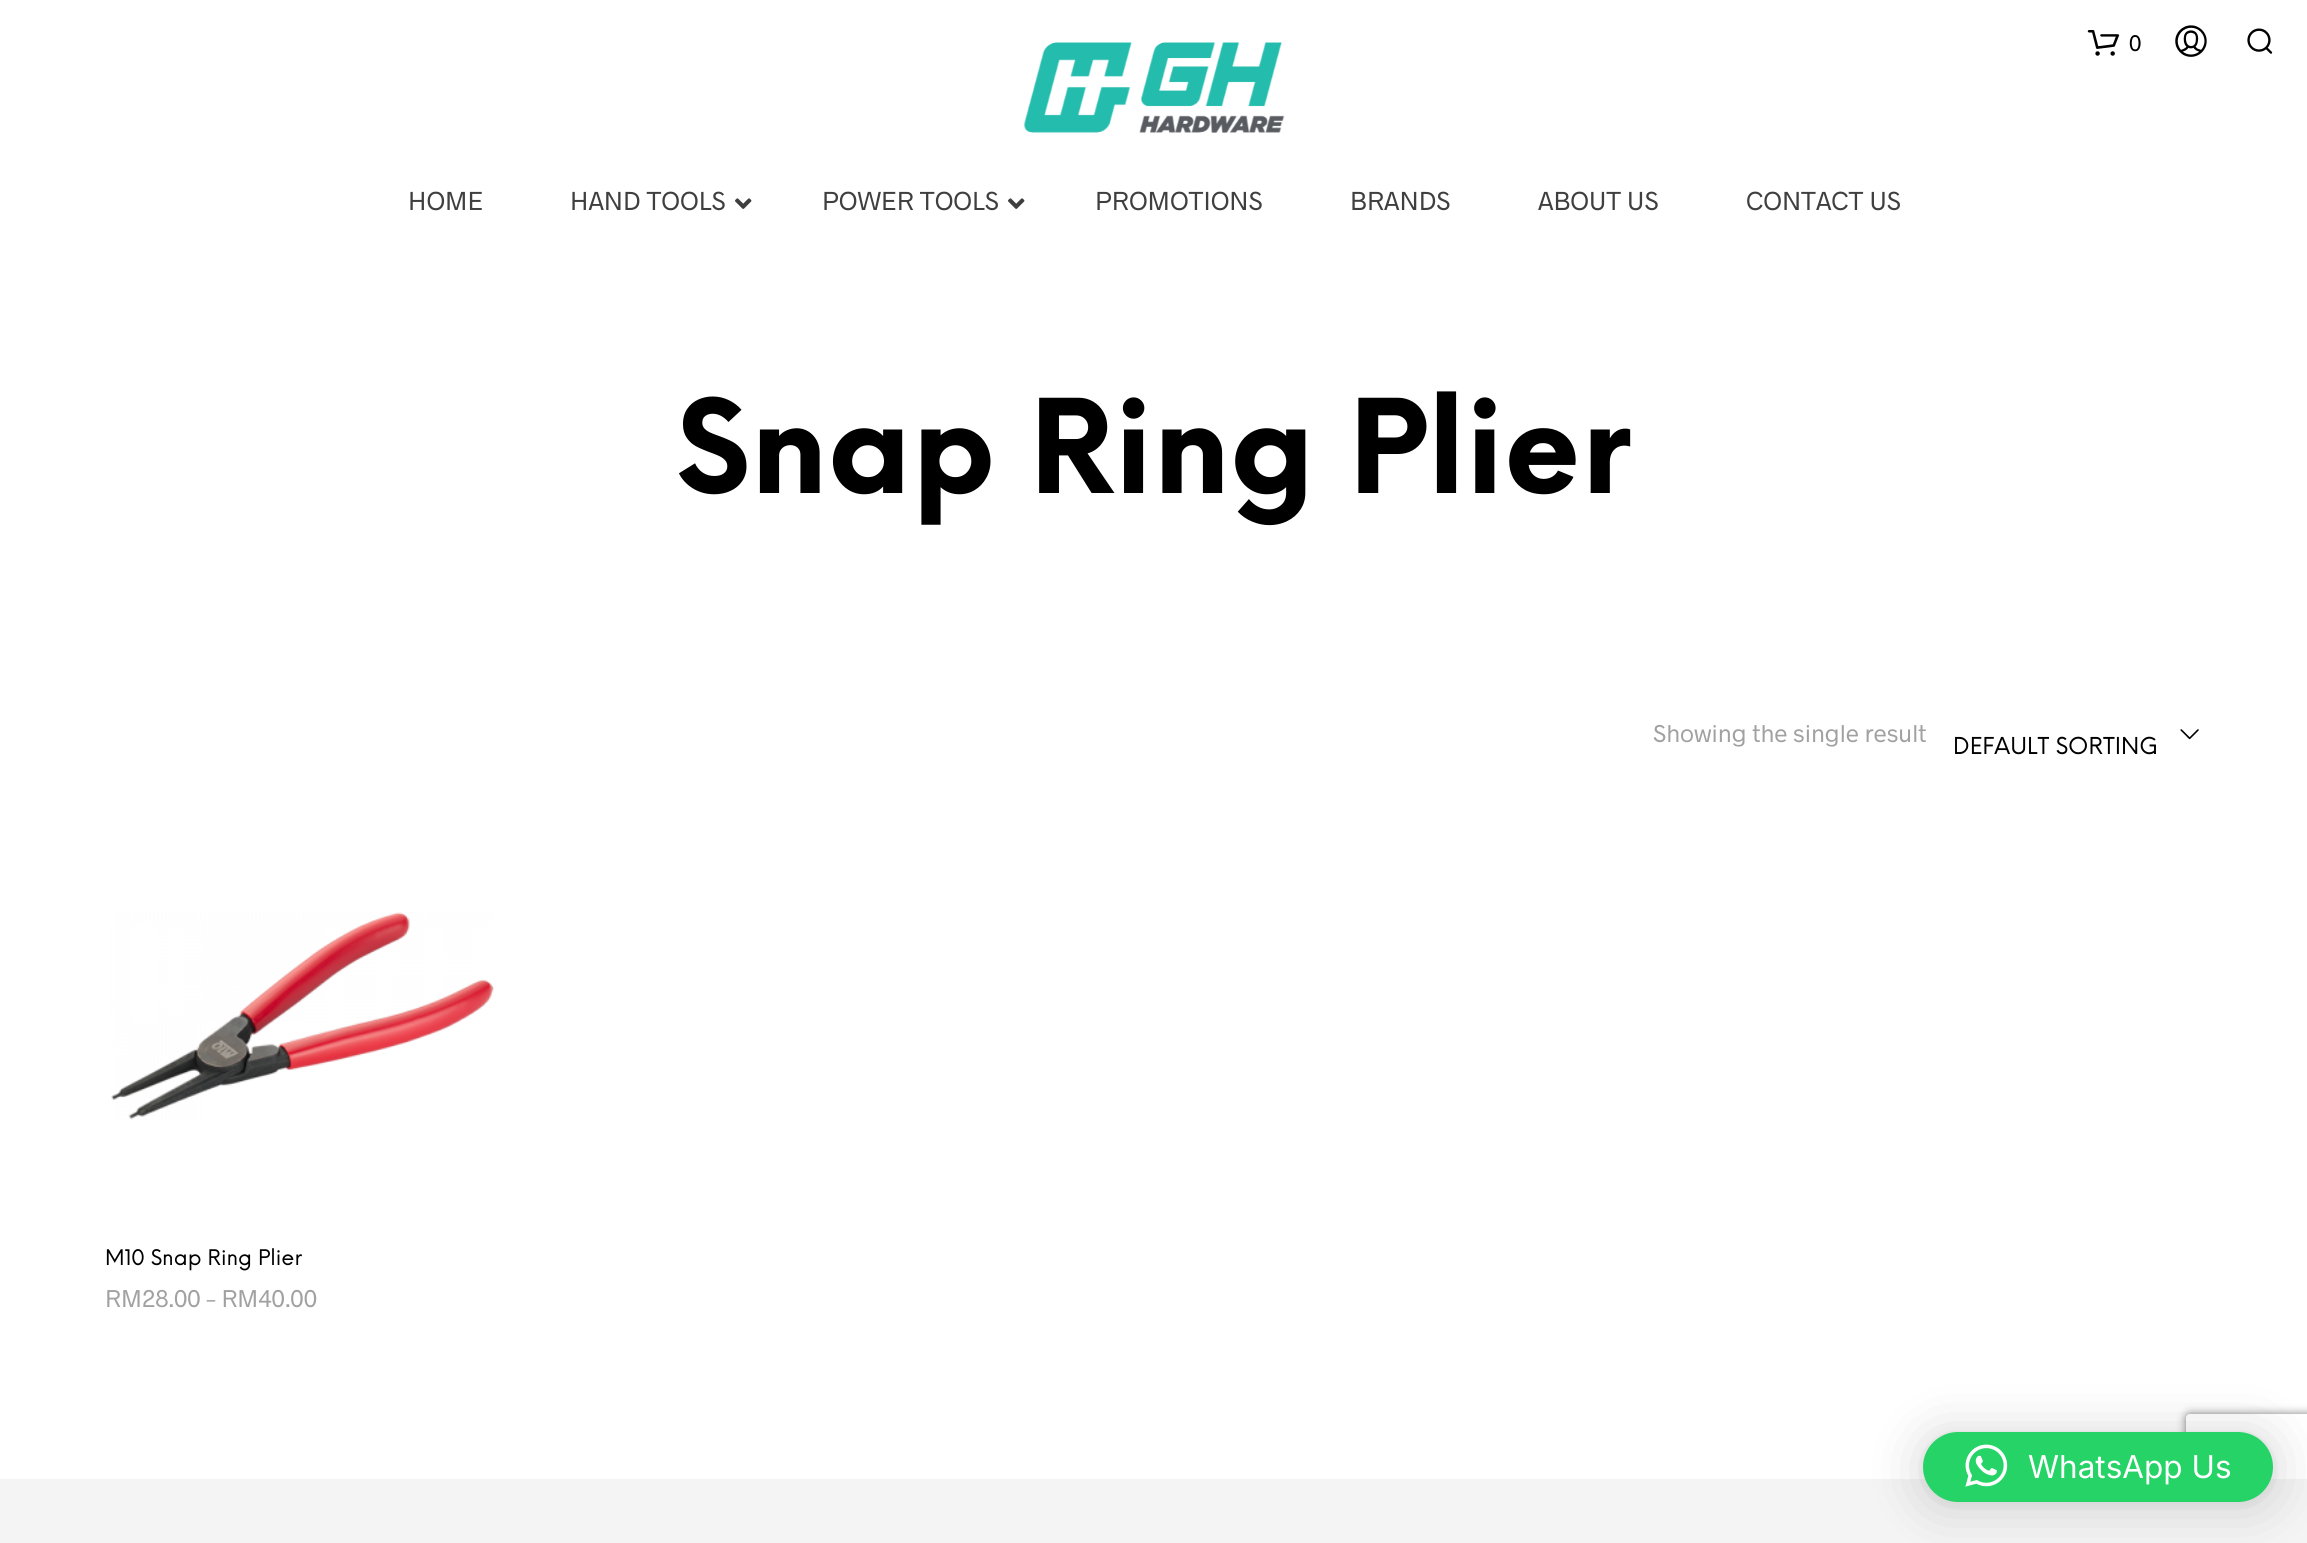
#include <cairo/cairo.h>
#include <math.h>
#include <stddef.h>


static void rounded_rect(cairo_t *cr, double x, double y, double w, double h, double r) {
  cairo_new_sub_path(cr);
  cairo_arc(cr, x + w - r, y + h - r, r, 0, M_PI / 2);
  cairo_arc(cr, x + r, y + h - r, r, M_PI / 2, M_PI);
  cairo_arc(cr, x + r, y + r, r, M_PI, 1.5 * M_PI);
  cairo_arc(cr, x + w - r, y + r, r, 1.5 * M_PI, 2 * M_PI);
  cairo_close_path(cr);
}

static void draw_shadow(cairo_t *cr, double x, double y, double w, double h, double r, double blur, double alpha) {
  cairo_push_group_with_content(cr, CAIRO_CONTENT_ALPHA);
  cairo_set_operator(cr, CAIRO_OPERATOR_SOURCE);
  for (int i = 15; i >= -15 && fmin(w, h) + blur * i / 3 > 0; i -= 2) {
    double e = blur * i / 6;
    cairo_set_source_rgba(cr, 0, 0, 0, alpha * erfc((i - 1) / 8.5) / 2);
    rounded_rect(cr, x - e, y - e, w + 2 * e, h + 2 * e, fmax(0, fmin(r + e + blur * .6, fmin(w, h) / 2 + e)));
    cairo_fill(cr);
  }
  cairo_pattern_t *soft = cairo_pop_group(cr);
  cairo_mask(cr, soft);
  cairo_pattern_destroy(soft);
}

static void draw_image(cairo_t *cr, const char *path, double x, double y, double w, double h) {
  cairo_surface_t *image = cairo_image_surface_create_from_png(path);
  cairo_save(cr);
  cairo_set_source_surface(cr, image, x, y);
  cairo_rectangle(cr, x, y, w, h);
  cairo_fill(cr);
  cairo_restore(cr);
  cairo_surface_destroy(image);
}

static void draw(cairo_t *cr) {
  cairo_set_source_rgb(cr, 1, 1, 1);
  cairo_paint(cr);
  draw_image(cr, "images/1.png", 1024, 42, 261, 91);
  draw_image(cr, "images/2.png", 2087, 30, 33, 26);
  draw_image(cr, "images/3.png", 2175, 25, 32, 32);
  draw_image(cr, "images/4.png", 2247, 28, 26, 26);
  draw_image(cr, "images/5.png", 735, 198, 17, 11);
  draw_image(cr, "images/5.png", 1008, 198, 17, 11);
  draw_image(cr, "images/6.png", 2180, 729, 19, 11);
  draw_image(cr, "images/7.png", 111, 912, 383, 208);
  cairo_save(cr);
  cairo_set_fill_rule(cr, CAIRO_FILL_RULE_EVEN_ODD);
  cairo_new_path(cr);
  cairo_move_to(cr, 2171, 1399);
  cairo_line_to(cr, 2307, 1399);
  cairo_line_to(cr, 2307, 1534);
  cairo_line_to(cr, 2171, 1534);
  cairo_close_path(cr);
  cairo_move_to(cr, 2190, 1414);
  cairo_line_to(cr, 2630, 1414);
  cairo_curve_to(cr, 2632, 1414, 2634, 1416, 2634, 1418);
  cairo_line_to(cr, 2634, 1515);
  cairo_curve_to(cr, 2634, 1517, 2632, 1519, 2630, 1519);
  cairo_line_to(cr, 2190, 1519);
  cairo_curve_to(cr, 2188, 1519, 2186, 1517, 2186, 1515);
  cairo_line_to(cr, 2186, 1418);
  cairo_curve_to(cr, 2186, 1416, 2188, 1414, 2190, 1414);
  cairo_close_path(cr);
  cairo_clip(cr);
  cairo_set_source_rgb(cr, 128 / 255.0, 128 / 255.0, 128 / 255.0);
  draw_shadow(cr, 2186, 1414, 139, 105, 4, 4.5, 1);
  cairo_restore(cr);
  cairo_set_source_rgb(cr, 244 / 255.0, 244 / 255.0, 244 / 255.0);
  cairo_rectangle(cr, 0, 1479, 2307, 64);
  cairo_fill(cr);
  cairo_set_source_rgb(cr, 0, 0, 0);
  draw_shadow(cr, 1923, 1435, 350, 70, 35, 28, 0.16);
  draw_shadow(cr, 1923, 1433, 350, 70, 35, 5, 0.06);
  cairo_set_source_rgb(cr, 37 / 255.0, 211 / 255.0, 102 / 255.0);
  rounded_rect(cr, 1923, 1432, 350, 70, 35);
  cairo_fill(cr);
  draw_image(cr, "images/8.png", 1965, 1444, 43, 43);
  cairo_select_font_face(cr, "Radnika", CAIRO_FONT_SLANT_NORMAL, CAIRO_FONT_WEIGHT_NORMAL);
  cairo_set_font_size(cr, 22.75);
  cairo_set_source_rgb(cr, 0, 0, 0);
  cairo_move_to(cr, 2129, 51);
  cairo_show_text(cr, "0");
  cairo_set_font_size(cr, 26.25);
  cairo_set_source_rgb(cr, 63 / 255.0, 63 / 255.0, 63 / 255.0);
  cairo_move_to(cr, 408, 210);
  cairo_show_text(cr, "HOME");
  cairo_move_to(cr, 570, 210);
  cairo_show_text(cr, "HAND TOOLS");
  cairo_move_to(cr, 822, 210);
  cairo_show_text(cr, "POWER TOOLS");
  cairo_move_to(cr, 1095, 210);
  cairo_show_text(cr, "PROMOTIONS");
  cairo_move_to(cr, 1350, 210);
  cairo_show_text(cr, "BRANDS");
  cairo_move_to(cr, 1538, 210);
  cairo_show_text(cr, "ABOUT US");
  cairo_move_to(cr, 1746, 210);
  cairo_show_text(cr, "CONTACT US");
  cairo_select_font_face(cr, "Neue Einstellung", CAIRO_FONT_SLANT_NORMAL, CAIRO_FONT_WEIGHT_BOLD);
  cairo_set_font_size(cr, 127);
  cairo_set_source_rgb(cr, 0, 0, 0);
  cairo_move_to(cr, 676, 493);
  cairo_show_text(cr, "Snap Ring Plier");
  cairo_select_font_face(cr, "Radnika", CAIRO_FONT_SLANT_NORMAL, CAIRO_FONT_WEIGHT_NORMAL);
  cairo_set_font_size(cr, 24.5);
  cairo_set_source_rgb(cr, 161 / 255.0, 161 / 255.0, 161 / 255.0);
  cairo_move_to(cr, 1653, 742);
  cairo_show_text(cr, "Showing the single result");
  cairo_select_font_face(cr, "Neue Einstellung", CAIRO_FONT_SLANT_NORMAL, CAIRO_FONT_WEIGHT_NORMAL);
  cairo_set_font_size(cr, 22.75);
  cairo_set_source_rgb(cr, 0, 0, 0);
  cairo_move_to(cr, 1953, 754);
  cairo_show_text(cr, "DEFAULT SORTING");
  cairo_set_font_size(cr, 21);
  cairo_move_to(cr, 105, 1265);
  cairo_show_text(cr, "M10 Snap Ring Plier");
  cairo_select_font_face(cr, "Radnika", CAIRO_FONT_SLANT_NORMAL, CAIRO_FONT_WEIGHT_NORMAL);
  cairo_set_font_size(cr, 24.5);
  cairo_set_source_rgb(cr, 161 / 255.0, 161 / 255.0, 161 / 255.0);
  cairo_move_to(cr, 105, 1307);
  cairo_show_text(cr, "RM28.00 – RM40.00");
  cairo_select_font_face(cr, "Inter", CAIRO_FONT_SLANT_NORMAL, CAIRO_FONT_WEIGHT_NORMAL);
  cairo_set_font_size(cr, 31.5);
  cairo_set_source_rgb(cr, 1, 1, 1);
  cairo_move_to(cr, 2028, 1478);
  cairo_show_text(cr, "WhatsApp Us");
}

int main(void) {
  cairo_surface_t *surface = cairo_image_surface_create(CAIRO_FORMAT_RGB24, 2307, 1543);
  cairo_t *cr = cairo_create(surface);
  cairo_font_options_t *options = cairo_font_options_create();
  cairo_font_options_set_hint_metrics(options, CAIRO_HINT_METRICS_OFF);
  cairo_font_options_set_hint_style(options, CAIRO_HINT_STYLE_NONE);
  cairo_set_font_options(cr, options);
  cairo_set_miter_limit(cr, 4);
  draw(cr);
  cairo_surface_write_to_png(surface, "out.png");
  cairo_font_options_destroy(options);
  cairo_destroy(cr);
  cairo_surface_destroy(surface);
  return 0;
}
